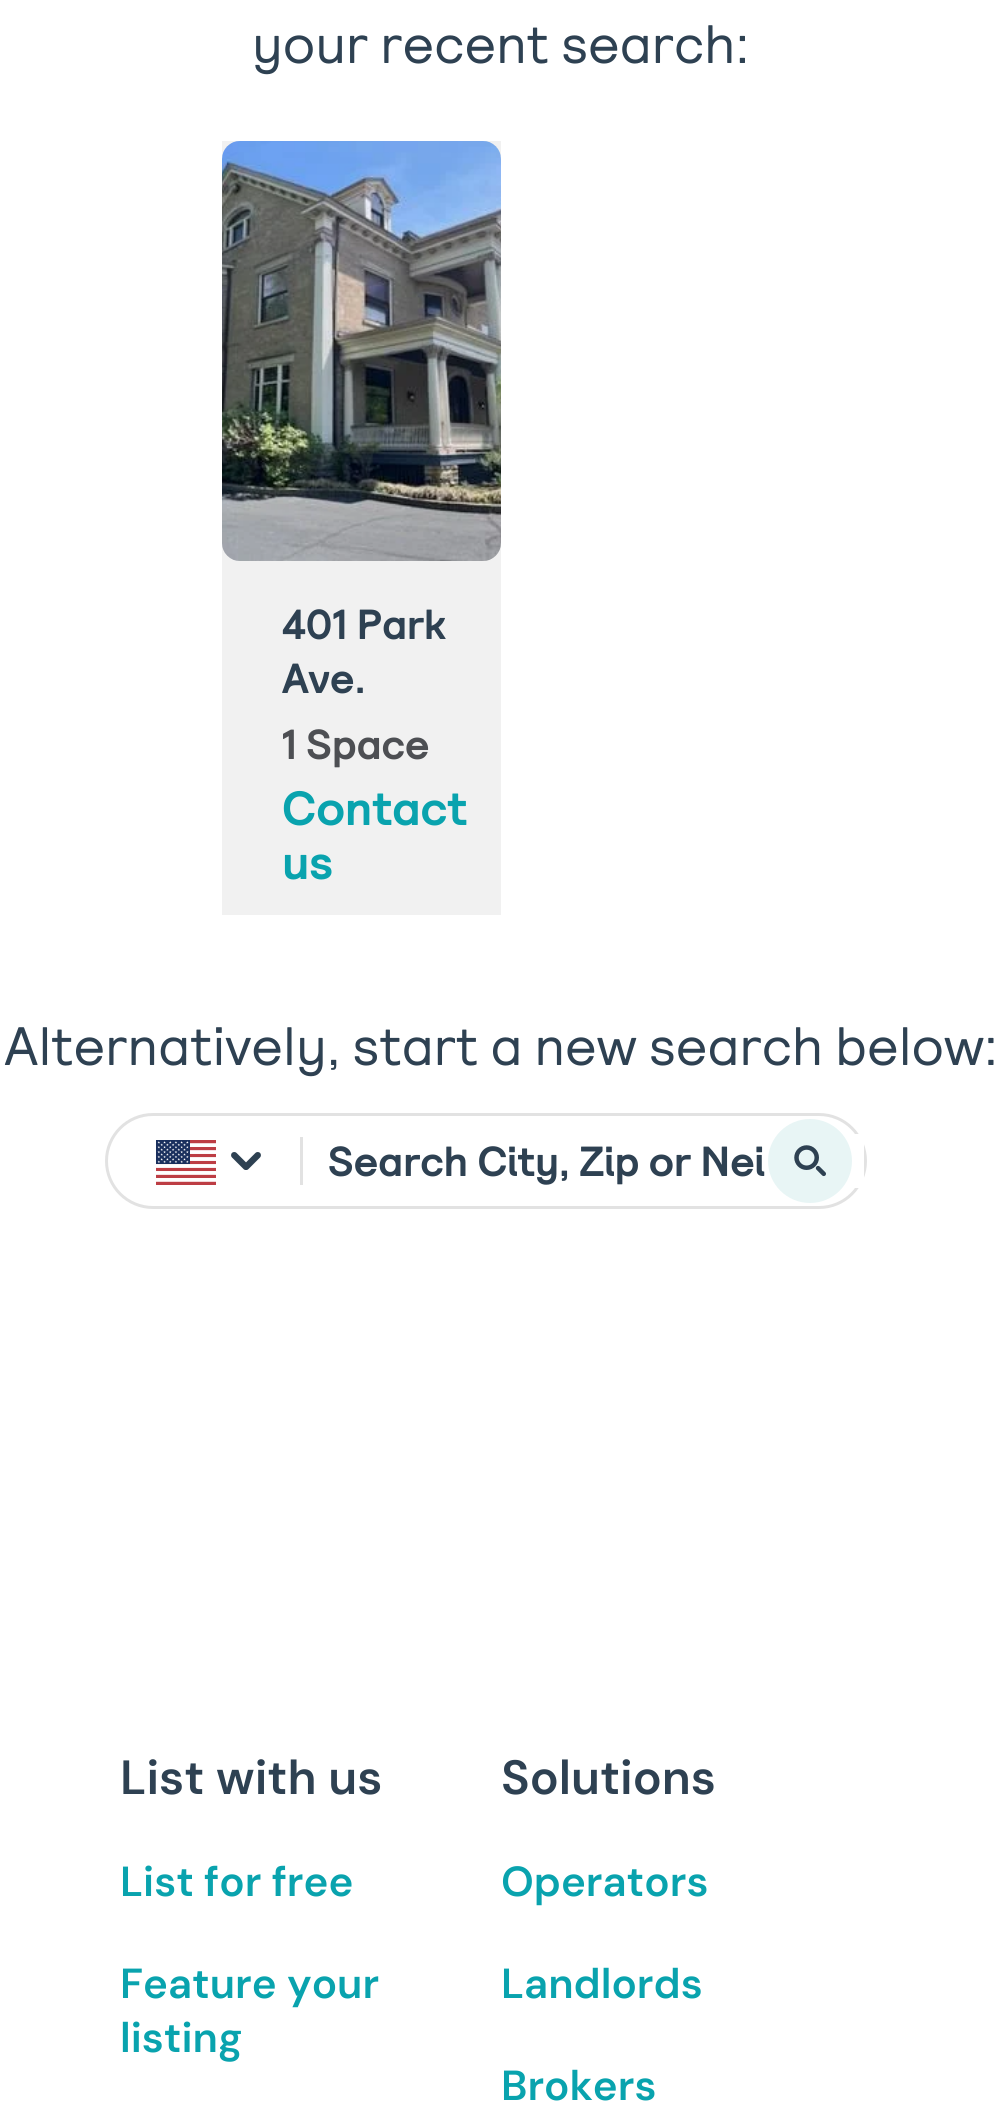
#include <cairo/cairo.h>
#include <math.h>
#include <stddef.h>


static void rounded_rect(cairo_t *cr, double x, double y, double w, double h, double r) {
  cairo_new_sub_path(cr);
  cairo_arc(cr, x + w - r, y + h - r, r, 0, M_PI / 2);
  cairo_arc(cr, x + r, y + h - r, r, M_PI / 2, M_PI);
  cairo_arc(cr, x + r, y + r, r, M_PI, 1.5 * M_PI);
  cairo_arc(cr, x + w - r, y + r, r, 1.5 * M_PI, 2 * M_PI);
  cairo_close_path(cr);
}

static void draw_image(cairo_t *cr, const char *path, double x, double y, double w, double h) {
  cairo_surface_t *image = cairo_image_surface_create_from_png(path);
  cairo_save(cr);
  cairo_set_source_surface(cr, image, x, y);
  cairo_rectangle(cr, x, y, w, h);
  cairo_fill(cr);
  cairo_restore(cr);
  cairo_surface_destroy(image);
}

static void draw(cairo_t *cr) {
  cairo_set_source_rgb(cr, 1, 1, 1);
  cairo_paint(cr);
  cairo_set_source_rgb(cr, 241 / 255.0, 241 / 255.0, 241 / 255.0);
  cairo_rectangle(cr, 222, 141, 279, 774);
  cairo_fill(cr);
  draw_image(cr, "images/1.png", 222, 141, 279, 420);
  rounded_rect(cr, 106.5, 1114.5, 759, 93, 46.5);
  cairo_set_source_rgb(cr, 226 / 255.0, 226 / 255.0, 226 / 255.0);
  cairo_set_line_width(cr, 3);
  cairo_stroke(cr);
  draw_image(cr, "images/2.png", 156, 1140, 60, 45);
  draw_image(cr, "images/3.png", 231, 1152, 30, 18);
  cairo_rectangle(cr, 300, 1137, 3, 48);
  cairo_fill(cr);
  cairo_set_source_rgb(cr, 1, 1, 1);
  cairo_rectangle(cr, 855, 1134, 9, 54);
  cairo_fill(cr);
  cairo_set_source_rgb(cr, 232 / 255.0, 245 / 255.0, 245 / 255.0);
  cairo_arc(cr, 810, 1161, 42, 0, 2 * M_PI);
  cairo_fill(cr);
  draw_image(cr, "images/4.png", 794, 1145, 32, 32);
  cairo_select_font_face(cr, "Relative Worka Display", CAIRO_FONT_SLANT_NORMAL, CAIRO_FONT_WEIGHT_NORMAL);
  cairo_set_font_size(cr, 54);
  cairo_set_source_rgb(cr, 46 / 255.0, 65 / 255.0, 82 / 255.0);
  cairo_move_to(cr, 252, 63);
  cairo_show_text(cr, "your recent search:");
  cairo_select_font_face(cr, "Relative Worka Display", CAIRO_FONT_SLANT_NORMAL, CAIRO_FONT_WEIGHT_BOLD);
  cairo_set_font_size(cr, 42);
  cairo_move_to(cr, 282, 639);
  cairo_show_text(cr, "401 Park");
  cairo_move_to(cr, 282, 693);
  cairo_show_text(cr, "Ave.");
  cairo_set_source_rgb(cr, 77 / 255.0, 79 / 255.0, 83 / 255.0);
  cairo_move_to(cr, 282, 759);
  cairo_show_text(cr, "1 Space");
  cairo_set_font_size(cr, 48);
  cairo_set_source_rgb(cr, 9 / 255.0, 163 / 255.0, 174 / 255.0);
  cairo_move_to(cr, 282, 825);
  cairo_show_text(cr, "Contact");
  cairo_move_to(cr, 282, 879);
  cairo_show_text(cr, "us");
  cairo_select_font_face(cr, "Relative Worka Display", CAIRO_FONT_SLANT_NORMAL, CAIRO_FONT_WEIGHT_NORMAL);
  cairo_set_font_size(cr, 54);
  cairo_set_source_rgb(cr, 46 / 255.0, 65 / 255.0, 82 / 255.0);
  cairo_move_to(cr, 4, 1065);
  cairo_show_text(cr, "Alternatively, start a new search below:");
  cairo_select_font_face(cr, "Relative Worka Display", CAIRO_FONT_SLANT_NORMAL, CAIRO_FONT_WEIGHT_BOLD);
  cairo_set_font_size(cr, 42);
  cairo_move_to(cr, 328, 1176);
  cairo_show_text(cr, "Search City, Zip or Nei");
  cairo_select_font_face(cr, "DM Sans SemiBold", CAIRO_FONT_SLANT_NORMAL, CAIRO_FONT_WEIGHT_NORMAL);
  cairo_set_font_size(cr, 48);
  cairo_move_to(cr, 120, 1794);
  cairo_show_text(cr, "List with us");
  cairo_set_font_size(cr, 42);
  cairo_set_source_rgb(cr, 9 / 255.0, 163 / 255.0, 174 / 255.0);
  cairo_move_to(cr, 120, 1896);
  cairo_show_text(cr, "List for free");
  cairo_move_to(cr, 120, 1998);
  cairo_show_text(cr, "Feature your");
  cairo_move_to(cr, 120, 2052);
  cairo_show_text(cr, "listing");
  cairo_set_font_size(cr, 48);
  cairo_set_source_rgb(cr, 46 / 255.0, 65 / 255.0, 82 / 255.0);
  cairo_move_to(cr, 501, 1794);
  cairo_show_text(cr, "Solutions");
  cairo_set_font_size(cr, 42);
  cairo_set_source_rgb(cr, 9 / 255.0, 163 / 255.0, 174 / 255.0);
  cairo_move_to(cr, 501, 1896);
  cairo_show_text(cr, "Operators");
  cairo_move_to(cr, 501, 1998);
  cairo_show_text(cr, "Landlords");
  cairo_move_to(cr, 501, 2100);
  cairo_show_text(cr, "Brokers");
}

int main(void) {
  cairo_surface_t *surface = cairo_image_surface_create(CAIRO_FORMAT_RGB24, 1002, 2107);
  cairo_t *cr = cairo_create(surface);
  cairo_font_options_t *options = cairo_font_options_create();
  cairo_font_options_set_hint_metrics(options, CAIRO_HINT_METRICS_OFF);
  cairo_font_options_set_hint_style(options, CAIRO_HINT_STYLE_NONE);
  cairo_set_font_options(cr, options);
  cairo_set_miter_limit(cr, 4);
  draw(cr);
  cairo_surface_write_to_png(surface, "out.png");
  cairo_font_options_destroy(options);
  cairo_destroy(cr);
  cairo_surface_destroy(surface);
  return 0;
}
